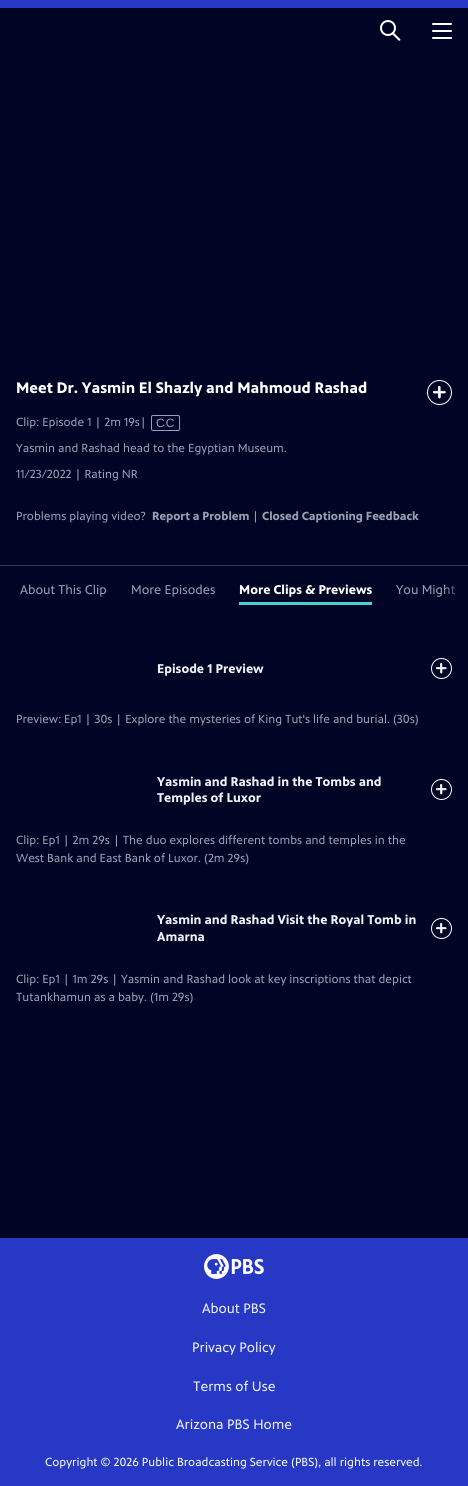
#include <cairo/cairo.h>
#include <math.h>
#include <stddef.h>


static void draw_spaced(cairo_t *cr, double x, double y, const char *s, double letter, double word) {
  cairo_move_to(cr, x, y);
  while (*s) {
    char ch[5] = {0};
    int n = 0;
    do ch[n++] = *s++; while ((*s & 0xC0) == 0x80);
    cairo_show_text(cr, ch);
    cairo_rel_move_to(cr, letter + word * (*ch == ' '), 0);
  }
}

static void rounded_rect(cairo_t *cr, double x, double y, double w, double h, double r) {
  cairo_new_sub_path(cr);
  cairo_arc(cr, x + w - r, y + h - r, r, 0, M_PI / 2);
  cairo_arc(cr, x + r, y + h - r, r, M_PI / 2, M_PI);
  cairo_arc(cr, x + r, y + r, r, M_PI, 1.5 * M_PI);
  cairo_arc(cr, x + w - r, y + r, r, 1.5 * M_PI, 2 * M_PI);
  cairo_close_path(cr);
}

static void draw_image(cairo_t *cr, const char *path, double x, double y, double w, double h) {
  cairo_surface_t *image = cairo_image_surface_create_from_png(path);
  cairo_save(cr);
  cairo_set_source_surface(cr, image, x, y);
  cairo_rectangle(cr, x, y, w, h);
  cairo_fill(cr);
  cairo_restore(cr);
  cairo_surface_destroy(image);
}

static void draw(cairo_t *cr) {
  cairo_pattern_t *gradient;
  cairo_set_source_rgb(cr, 0, 5 / 255.0, 37 / 255.0);
  cairo_paint(cr);
  cairo_set_source_rgb(cr, 38 / 255.0, 56 / 255.0, 196 / 255.0);
  cairo_rectangle(cr, 0, 0, 468, 8);
  cairo_fill(cr);
  cairo_arc(cr, 388, 28, 7, 0, 2 * M_PI);
  cairo_set_source_rgb(cr, 1, 1, 1);
  cairo_stroke(cr);
  cairo_new_path(cr);
  cairo_move_to(cr, 398.5, 40.5);
  cairo_line_to(cr, 391.5, 33.5);
  cairo_line_to(cr, 392, 32.5);
  cairo_curve_to(cr, 393, 31, 395, 34, 395.5, 34.5);
  cairo_line_to(cr, 400.5, 39.5);
  cairo_curve_to(cr, 400.5, 40.5, 399.5, 41, 398.5, 40.5);
  cairo_close_path(cr);
  cairo_fill(cr);
  rounded_rect(cr, 432, 23, 20, 2, 1);
  cairo_fill(cr);
  rounded_rect(cr, 432, 30, 20, 2, 1);
  cairo_fill(cr);
  rounded_rect(cr, 432, 37, 20, 2, 1);
  cairo_fill(cr);
  cairo_arc(cr, 439.5, 392.5, 12, 0, 2 * M_PI);
  cairo_set_line_width(cr, 1);
  cairo_stroke(cr);
  draw_image(cr, "images/1.png", 433, 385, 13, 14);
  rounded_rect(cr, 151.5, 415.5, 28, 15, 1.5);
  cairo_set_source_rgb(cr, 148 / 255.0, 161 / 255.0, 178 / 255.0);
  cairo_stroke(cr);
  cairo_set_source_rgb(cr, 46 / 255.0, 58 / 255.0, 85 / 255.0);
  cairo_rectangle(cr, 0, 565, 468, 1);
  cairo_fill(cr);
  cairo_set_source_rgb(cr, 70 / 255.0, 212 / 255.0, 205 / 255.0);
  cairo_rectangle(cr, 239, 602, 133, 3);
  cairo_fill(cr);
  cairo_arc(cr, 441.5, 668.5, 10, 0, 2 * M_PI);
  cairo_set_source_rgb(cr, 1, 1, 1);
  cairo_stroke(cr);
  draw_image(cr, "images/2.png", 436, 663, 11, 11);
  cairo_arc(cr, 441.5, 789.5, 10, 0, 2 * M_PI);
  cairo_stroke(cr);
  draw_image(cr, "images/2.png", 436, 784, 11, 11);
  cairo_arc(cr, 441.5, 928.5, 10, 0, 2 * M_PI);
  cairo_stroke(cr);
  draw_image(cr, "images/2.png", 436, 923, 11, 11);
  cairo_set_source_rgb(cr, 38 / 255.0, 56 / 255.0, 196 / 255.0);
  cairo_rectangle(cr, 0, 1238, 468, 248);
  cairo_fill(cr);
  draw_image(cr, "images/3.png", 204, 1254, 60, 25);
  cairo_select_font_face(cr, "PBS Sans", CAIRO_FONT_SLANT_NORMAL, CAIRO_FONT_WEIGHT_BOLD);
  cairo_set_font_size(cr, 15.6);
  cairo_set_source_rgb(cr, 1, 1, 1);
  cairo_move_to(cr, 16, 393);
  cairo_show_text(cr, "Meet Dr. Yasmin El Shazly and Mahmoud Rashad");
  cairo_select_font_face(cr, "PBS Sans", CAIRO_FONT_SLANT_NORMAL, CAIRO_FONT_WEIGHT_NORMAL);
  cairo_set_font_size(cr, 12);
  cairo_set_source_rgb(cr, 148 / 255.0, 161 / 255.0, 178 / 255.0);
  cairo_move_to(cr, 16, 426);
  cairo_show_text(cr, "Clip: Episode 1 | 2m 19s|");
  cairo_select_font_face(cr, "Liberation Sans", CAIRO_FONT_SLANT_NORMAL, CAIRO_FONT_WEIGHT_NORMAL);
  draw_spaced(cr, 156, 427, "CC", 1, 0);
  cairo_select_font_face(cr, "PBS Sans", CAIRO_FONT_SLANT_NORMAL, CAIRO_FONT_WEIGHT_NORMAL);
  cairo_move_to(cr, 16, 452);
  cairo_show_text(cr, "Yasmin and Rashad head to the Egyptian Museum.");
  cairo_move_to(cr, 16, 478);
  cairo_show_text(cr, "11/23/2022 | Rating NR");
  cairo_move_to(cr, 16, 520);
  cairo_show_text(cr, "Problems playing video?");
  cairo_select_font_face(cr, "PBS Sans", CAIRO_FONT_SLANT_NORMAL, CAIRO_FONT_WEIGHT_BOLD);
  cairo_move_to(cr, 152, 520);
  cairo_show_text(cr, "Report a Problem");
  cairo_select_font_face(cr, "PBS Sans", CAIRO_FONT_SLANT_NORMAL, CAIRO_FONT_WEIGHT_NORMAL);
  cairo_move_to(cr, 252, 520);
  cairo_show_text(cr, "|");
  cairo_select_font_face(cr, "PBS Sans", CAIRO_FONT_SLANT_NORMAL, CAIRO_FONT_WEIGHT_BOLD);
  cairo_move_to(cr, 262, 520);
  cairo_show_text(cr, "Closed Captioning Feedback");
  cairo_select_font_face(cr, "PBS Sans", CAIRO_FONT_SLANT_NORMAL, CAIRO_FONT_WEIGHT_NORMAL);
  cairo_set_font_size(cr, 13);
  cairo_move_to(cr, 20, 594);
  cairo_show_text(cr, "About This Clip");
  cairo_move_to(cr, 131, 594);
  cairo_show_text(cr, "More Episodes");
  cairo_select_font_face(cr, "PBS Sans", CAIRO_FONT_SLANT_NORMAL, CAIRO_FONT_WEIGHT_BOLD);
  cairo_set_source_rgb(cr, 1, 1, 1);
  cairo_move_to(cr, 239, 594);
  cairo_show_text(cr, "More Clips & Previews");
  cairo_select_font_face(cr, "PBS Sans", CAIRO_FONT_SLANT_NORMAL, CAIRO_FONT_WEIGHT_NORMAL);
  cairo_set_source_rgb(cr, 148 / 255.0, 161 / 255.0, 178 / 255.0);
  cairo_move_to(cr, 396, 594);
  cairo_show_text(cr, "You Might");
  gradient = cairo_pattern_create_linear(444, 599, 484, 599);
  cairo_pattern_add_color_stop_rgba(gradient, 0, 0, 5 / 255.0, 37 / 255.0, 0);
  cairo_pattern_add_color_stop_rgba(gradient, 0.5, 0, 5 / 255.0, 37 / 255.0, 1);
  cairo_set_source(cr, gradient);
  cairo_pattern_destroy(gradient);
  cairo_rectangle(cr, 445, 584, 11, 11);
  cairo_fill(cr);
  cairo_select_font_face(cr, "PBS Sans", CAIRO_FONT_SLANT_NORMAL, CAIRO_FONT_WEIGHT_BOLD);
  cairo_set_source_rgb(cr, 238 / 255.0, 240 / 255.0, 245 / 255.0);
  cairo_move_to(cr, 157, 673);
  cairo_show_text(cr, "Episode 1 Preview");
  cairo_select_font_face(cr, "PBS Sans", CAIRO_FONT_SLANT_NORMAL, CAIRO_FONT_WEIGHT_NORMAL);
  cairo_set_font_size(cr, 12);
  cairo_set_source_rgb(cr, 148 / 255.0, 161 / 255.0, 178 / 255.0);
  cairo_move_to(cr, 16, 723);
  cairo_show_text(cr, "Preview: Ep1 | 30s | Explore the mysteries of King Tut's life and burial. (30s)");
  cairo_select_font_face(cr, "PBS Sans", CAIRO_FONT_SLANT_NORMAL, CAIRO_FONT_WEIGHT_BOLD);
  cairo_set_font_size(cr, 13);
  cairo_set_source_rgb(cr, 238 / 255.0, 240 / 255.0, 245 / 255.0);
  cairo_move_to(cr, 157, 786);
  cairo_show_text(cr, "Yasmin and Rashad in the Tombs and");
  cairo_move_to(cr, 157, 802);
  cairo_show_text(cr, "Temples of Luxor");
  cairo_select_font_face(cr, "PBS Sans", CAIRO_FONT_SLANT_NORMAL, CAIRO_FONT_WEIGHT_NORMAL);
  cairo_set_font_size(cr, 12);
  cairo_set_source_rgb(cr, 148 / 255.0, 161 / 255.0, 178 / 255.0);
  cairo_move_to(cr, 16, 844);
  cairo_show_text(cr, "Clip: Ep1 | 2m 29s | The duo explores different tombs and temples in the");
  cairo_move_to(cr, 16, 862);
  cairo_show_text(cr, "West Bank and East Bank of Luxor. (2m 29s)");
  cairo_select_font_face(cr, "PBS Sans", CAIRO_FONT_SLANT_NORMAL, CAIRO_FONT_WEIGHT_BOLD);
  cairo_set_font_size(cr, 13);
  cairo_set_source_rgb(cr, 238 / 255.0, 240 / 255.0, 245 / 255.0);
  cairo_move_to(cr, 157, 924);
  cairo_show_text(cr, "Yasmin and Rashad Visit the Royal Tomb in");
  cairo_move_to(cr, 157, 941);
  cairo_show_text(cr, "Amarna");
  cairo_select_font_face(cr, "PBS Sans", CAIRO_FONT_SLANT_NORMAL, CAIRO_FONT_WEIGHT_NORMAL);
  cairo_set_font_size(cr, 12);
  cairo_set_source_rgb(cr, 148 / 255.0, 161 / 255.0, 178 / 255.0);
  cairo_move_to(cr, 16, 983);
  cairo_show_text(cr, "Clip: Ep1 | 1m 29s | Yasmin and Rashad look at key inscriptions that depict");
  cairo_move_to(cr, 16, 1001);
  cairo_show_text(cr, "Tutankhamun as a baby. (1m 29s)");
  cairo_set_font_size(cr, 14);
  cairo_set_source_rgb(cr, 238 / 255.0, 240 / 255.0, 245 / 255.0);
  cairo_move_to(cr, 202, 1313);
  cairo_show_text(cr, "About PBS");
  cairo_move_to(cr, 192, 1352);
  cairo_show_text(cr, "Privacy Policy");
  cairo_move_to(cr, 193, 1391);
  cairo_show_text(cr, "Terms of Use");
  cairo_move_to(cr, 176, 1429);
  cairo_show_text(cr, "Arizona PBS Home");
  cairo_set_font_size(cr, 12);
  cairo_set_source_rgb(cr, 246 / 255.0, 248 / 255.0, 250 / 255.0);
  cairo_move_to(cr, 45, 1466);
  cairo_show_text(cr, "Copyright © 2026 Public Broadcasting Service (PBS), all rights reserved.");
}

int main(void) {
  cairo_surface_t *surface = cairo_image_surface_create(CAIRO_FORMAT_RGB24, 468, 1486);
  cairo_t *cr = cairo_create(surface);
  cairo_font_options_t *options = cairo_font_options_create();
  cairo_font_options_set_hint_metrics(options, CAIRO_HINT_METRICS_OFF);
  cairo_font_options_set_hint_style(options, CAIRO_HINT_STYLE_NONE);
  cairo_set_font_options(cr, options);
  cairo_set_miter_limit(cr, 4);
  draw(cr);
  cairo_surface_write_to_png(surface, "out.png");
  cairo_font_options_destroy(options);
  cairo_destroy(cr);
  cairo_surface_destroy(surface);
  return 0;
}
